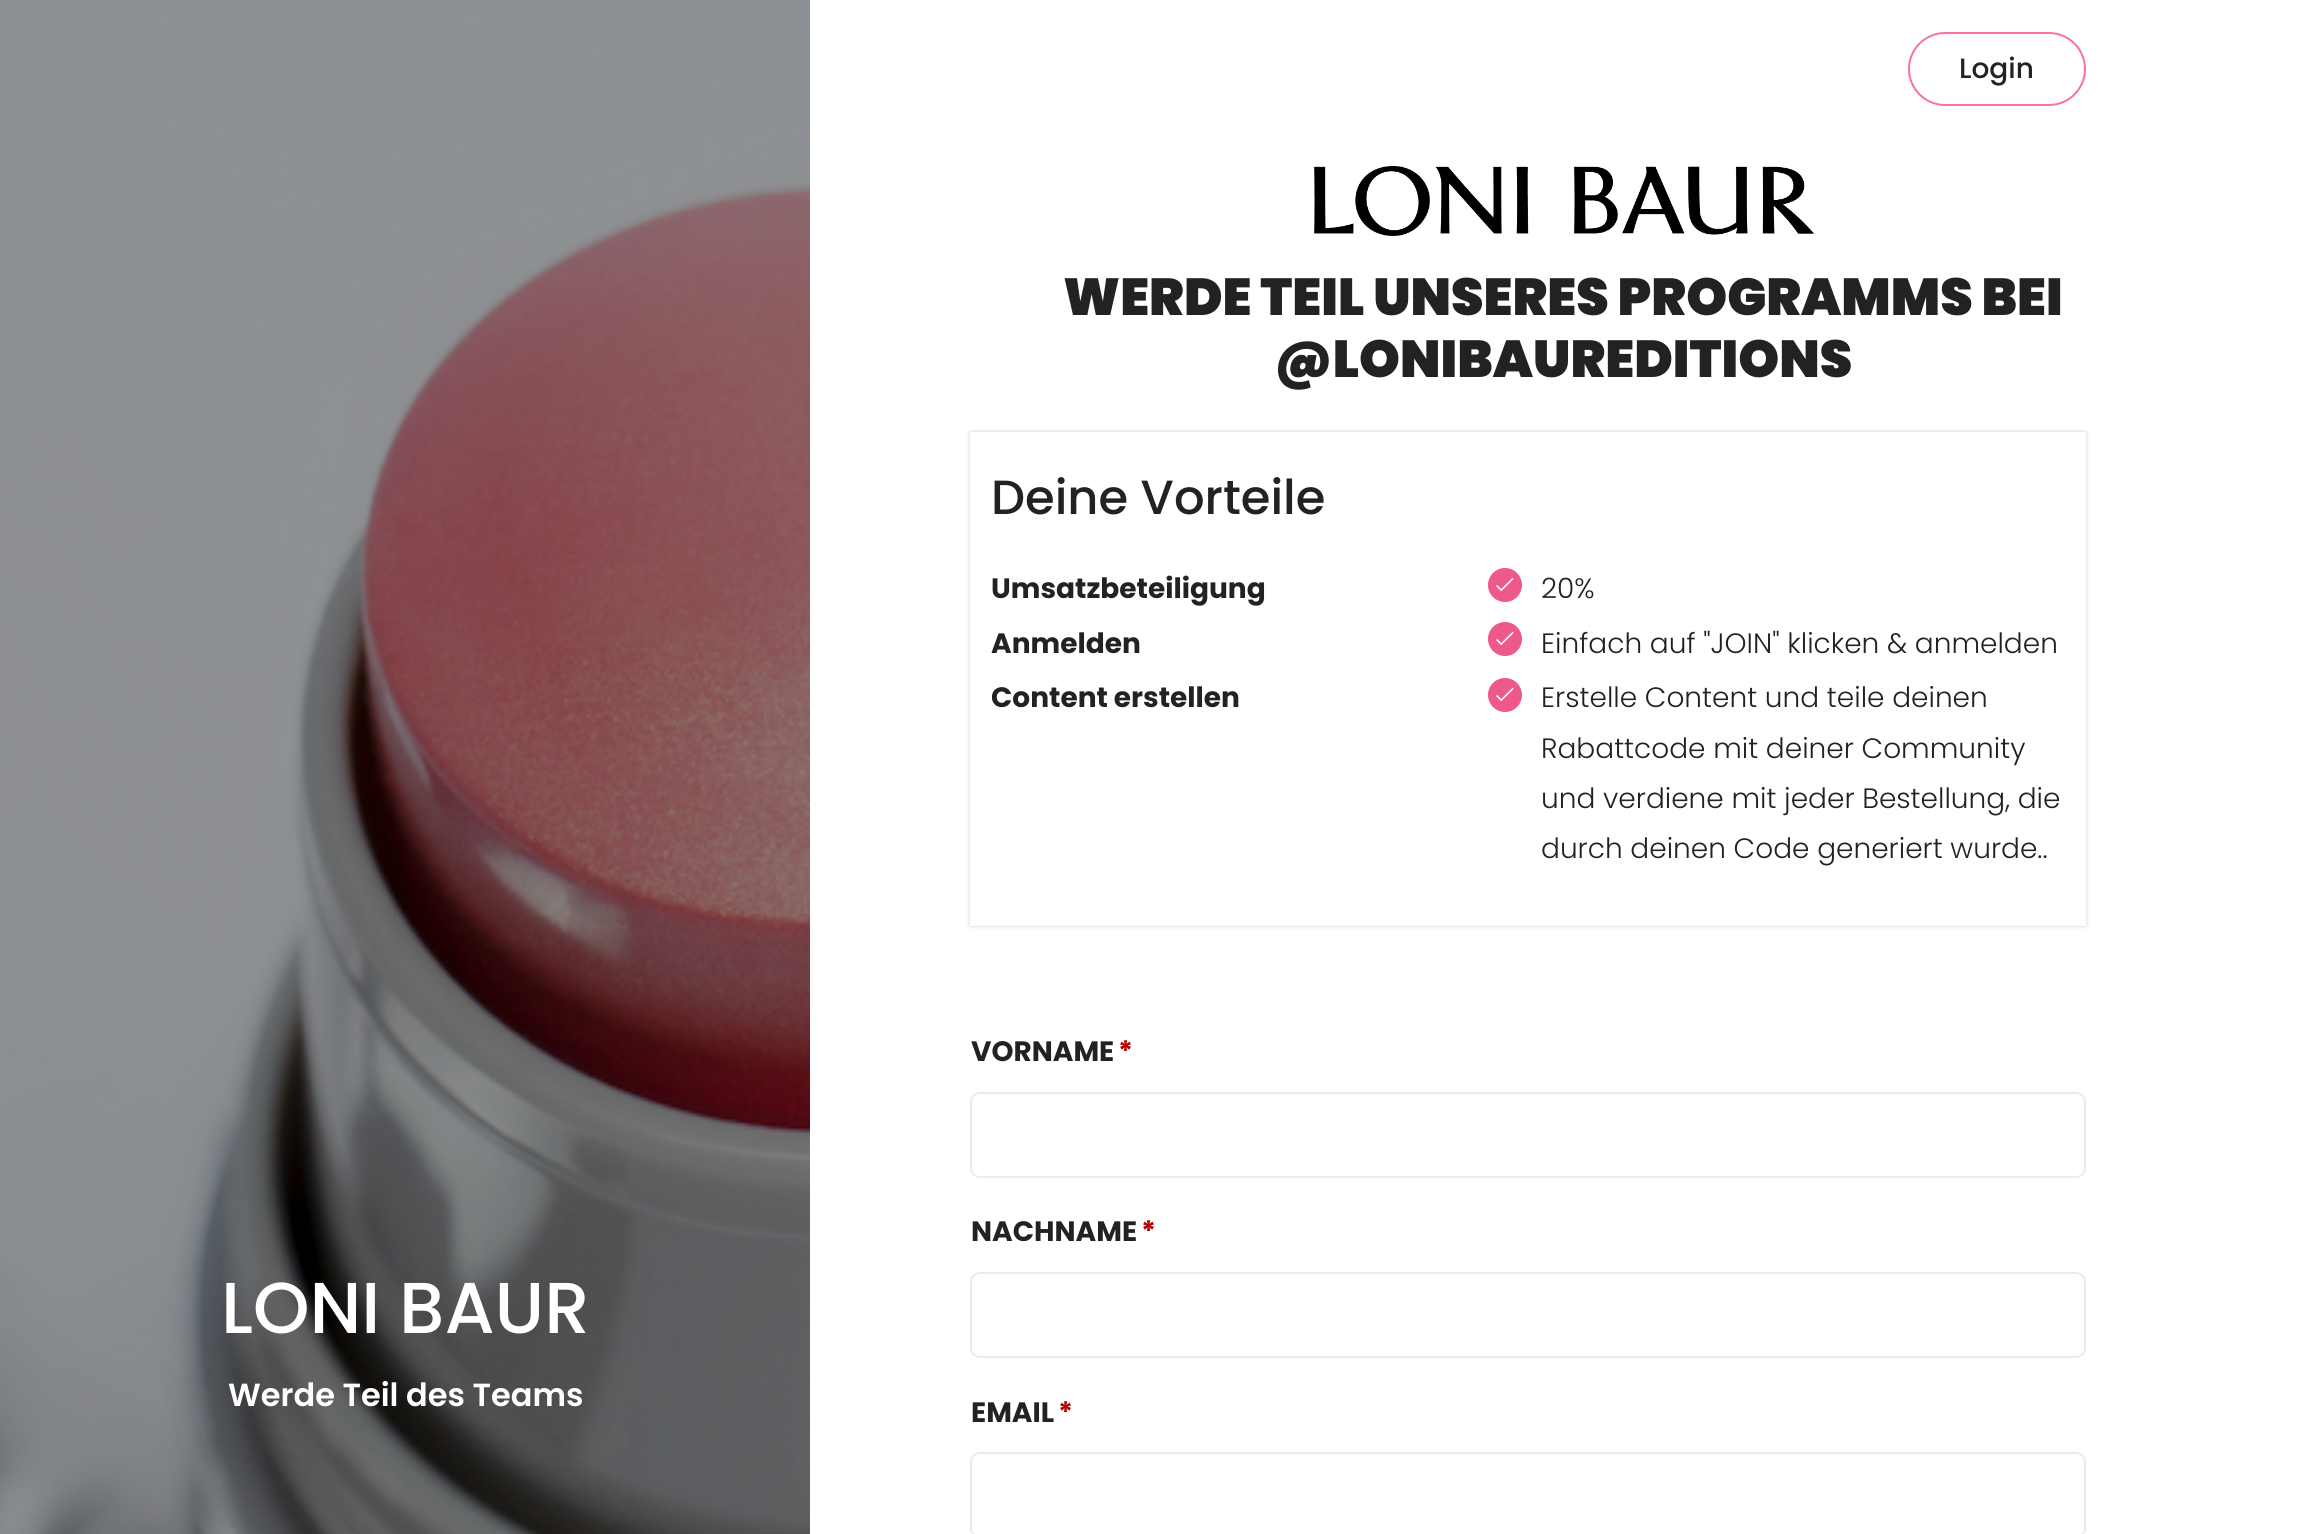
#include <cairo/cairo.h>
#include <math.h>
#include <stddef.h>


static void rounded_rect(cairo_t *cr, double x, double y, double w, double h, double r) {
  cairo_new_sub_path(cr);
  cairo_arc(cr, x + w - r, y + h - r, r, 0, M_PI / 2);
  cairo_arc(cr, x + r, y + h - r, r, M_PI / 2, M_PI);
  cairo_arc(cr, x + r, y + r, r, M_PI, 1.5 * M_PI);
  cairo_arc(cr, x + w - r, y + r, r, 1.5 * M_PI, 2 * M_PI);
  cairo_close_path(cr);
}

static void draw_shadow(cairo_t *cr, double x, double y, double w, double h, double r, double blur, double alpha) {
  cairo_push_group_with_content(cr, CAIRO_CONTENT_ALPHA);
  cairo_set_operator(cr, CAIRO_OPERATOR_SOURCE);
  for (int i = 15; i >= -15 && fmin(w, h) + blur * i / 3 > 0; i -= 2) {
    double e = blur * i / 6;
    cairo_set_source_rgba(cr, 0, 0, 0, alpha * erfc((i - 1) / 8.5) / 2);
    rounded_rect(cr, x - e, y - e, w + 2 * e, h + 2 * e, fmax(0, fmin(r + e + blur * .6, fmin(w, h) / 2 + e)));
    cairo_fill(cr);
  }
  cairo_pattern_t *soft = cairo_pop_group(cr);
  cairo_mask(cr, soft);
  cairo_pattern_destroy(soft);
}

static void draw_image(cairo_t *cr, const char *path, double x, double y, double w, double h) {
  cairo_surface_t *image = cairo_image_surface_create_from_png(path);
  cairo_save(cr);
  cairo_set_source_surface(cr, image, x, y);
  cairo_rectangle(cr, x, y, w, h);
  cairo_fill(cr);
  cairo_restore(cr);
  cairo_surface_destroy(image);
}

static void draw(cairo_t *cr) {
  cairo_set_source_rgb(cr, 1, 1, 1);
  cairo_paint(cr);
  draw_image(cr, "images/1.png", 0, 0, 810, 1534);
  rounded_rect(cr, 1909, 33, 176, 72, 36);
  cairo_set_source_rgb(cr, 249 / 255.0, 113 / 255.0, 167 / 255.0);
  cairo_stroke(cr);
  draw_image(cr, "images/2.png", 1314, 166, 500, 70);
  cairo_save(cr);
  cairo_set_fill_rule(cr, CAIRO_FILL_RULE_EVEN_ODD);
  cairo_new_path(cr);
  cairo_move_to(cr, 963, 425);
  cairo_line_to(cr, 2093, 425);
  cairo_line_to(cr, 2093, 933);
  cairo_line_to(cr, 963, 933);
  cairo_close_path(cr);
  cairo_move_to(cr, 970, 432);
  cairo_line_to(cr, 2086, 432);
  cairo_line_to(cr, 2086, 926);
  cairo_line_to(cr, 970, 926);
  cairo_close_path(cr);
  cairo_clip(cr);
  cairo_set_source_rgb(cr, 204 / 255.0, 204 / 255.0, 204 / 255.0);
  draw_shadow(cr, 970, 432, 1116, 494, 0, 2, 1);
  cairo_restore(cr);
  cairo_set_source_rgb(cr, 238 / 255.0, 89 / 255.0, 141 / 255.0);
  cairo_arc(cr, 1505, 585, 17, 0, 2 * M_PI);
  cairo_fill(cr);
  draw_image(cr, "images/3.png", 1496, 578, 18, 13);
  cairo_arc(cr, 1505, 639, 17, 0, 2 * M_PI);
  cairo_fill(cr);
  draw_image(cr, "images/3.png", 1496, 632, 18, 13);
  cairo_arc(cr, 1505, 695, 17, 0, 2 * M_PI);
  cairo_fill(cr);
  draw_image(cr, "images/3.png", 1496, 688, 18, 13);
  rounded_rect(cr, 971, 1093, 1114, 84, 9);
  cairo_set_source_rgb(cr, 235 / 255.0, 235 / 255.0, 235 / 255.0);
  cairo_stroke(cr);
  rounded_rect(cr, 971, 1273, 1114, 84, 9);
  cairo_stroke(cr);
  rounded_rect(cr, 971, 1453, 1114, 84, 9);
  cairo_stroke(cr);
  cairo_select_font_face(cr, "Poppins Medium", CAIRO_FONT_SLANT_NORMAL, CAIRO_FONT_WEIGHT_NORMAL);
  cairo_set_font_size(cr, 72);
  cairo_set_source_rgb(cr, 1, 1, 1);
  cairo_move_to(cr, 221, 1333);
  cairo_show_text(cr, "LONI BAUR");
  cairo_select_font_face(cr, "Poppins SemiBold", CAIRO_FONT_SLANT_NORMAL, CAIRO_FONT_WEIGHT_NORMAL);
  cairo_set_font_size(cr, 32);
  cairo_move_to(cr, 228, 1406);
  cairo_show_text(cr, "Werde Teil des Teams");
  cairo_select_font_face(cr, "Poppins Medium", CAIRO_FONT_SLANT_NORMAL, CAIRO_FONT_WEIGHT_NORMAL);
  cairo_set_font_size(cr, 28);
  cairo_set_source_rgb(cr, 34 / 255.0, 34 / 255.0, 34 / 255.0);
  cairo_move_to(cr, 1959, 78);
  cairo_show_text(cr, "Login");
  cairo_select_font_face(cr, "Poppins Black", CAIRO_FONT_SLANT_NORMAL, CAIRO_FONT_WEIGHT_NORMAL);
  cairo_set_font_size(cr, 52);
  cairo_move_to(cr, 1063, 315);
  cairo_show_text(cr, "WERDE TEIL UNSERES PROGRAMMS BEI");
  cairo_move_to(cr, 1274, 377);
  cairo_show_text(cr, "@LONIBAUREDITIONS");
  cairo_select_font_face(cr, "Poppins Medium", CAIRO_FONT_SLANT_NORMAL, CAIRO_FONT_WEIGHT_NORMAL);
  cairo_set_font_size(cr, 48);
  cairo_move_to(cr, 991, 514);
  cairo_show_text(cr, "Deine Vorteile");
  cairo_select_font_face(cr, "Poppins", CAIRO_FONT_SLANT_NORMAL, CAIRO_FONT_WEIGHT_BOLD);
  cairo_set_font_size(cr, 28);
  cairo_move_to(cr, 991, 598);
  cairo_show_text(cr, "Umsatzbeteiligung");
  cairo_select_font_face(cr, "Poppins Light", CAIRO_FONT_SLANT_NORMAL, CAIRO_FONT_WEIGHT_NORMAL);
  cairo_move_to(cr, 1541, 598);
  cairo_show_text(cr, "20%");
  cairo_select_font_face(cr, "Poppins", CAIRO_FONT_SLANT_NORMAL, CAIRO_FONT_WEIGHT_BOLD);
  cairo_move_to(cr, 991, 653);
  cairo_show_text(cr, "Anmelden");
  cairo_select_font_face(cr, "Poppins Light", CAIRO_FONT_SLANT_NORMAL, CAIRO_FONT_WEIGHT_NORMAL);
  cairo_move_to(cr, 1541, 653);
  cairo_show_text(cr, "Einfach auf \"JOIN\" klicken & anmelden");
  cairo_select_font_face(cr, "Poppins", CAIRO_FONT_SLANT_NORMAL, CAIRO_FONT_WEIGHT_BOLD);
  cairo_move_to(cr, 991, 707);
  cairo_show_text(cr, "Content erstellen");
  cairo_select_font_face(cr, "Poppins Light", CAIRO_FONT_SLANT_NORMAL, CAIRO_FONT_WEIGHT_NORMAL);
  cairo_move_to(cr, 1541, 707);
  cairo_show_text(cr, "Erstelle Content und teile deinen");
  cairo_move_to(cr, 1541, 758);
  cairo_show_text(cr, "Rabattcode mit deiner Community");
  cairo_move_to(cr, 1541, 808);
  cairo_show_text(cr, "und verdiene mit jeder Bestellung, die");
  cairo_move_to(cr, 1541, 858);
  cairo_show_text(cr, "durch deinen Code generiert wurde..");
  cairo_select_font_face(cr, "Poppins", CAIRO_FONT_SLANT_NORMAL, CAIRO_FONT_WEIGHT_BOLD);
  cairo_move_to(cr, 971, 1061);
  cairo_show_text(cr, "VORNAME");
  cairo_set_source_rgb(cr, 185 / 255.0, 0, 0);
  cairo_move_to(cr, 1118, 1061);
  cairo_show_text(cr, "*");
  cairo_set_source_rgb(cr, 34 / 255.0, 34 / 255.0, 34 / 255.0);
  cairo_move_to(cr, 971, 1241);
  cairo_show_text(cr, "NACHNAME");
  cairo_set_source_rgb(cr, 185 / 255.0, 0, 0);
  cairo_move_to(cr, 1141, 1241);
  cairo_show_text(cr, "*");
  cairo_set_source_rgb(cr, 34 / 255.0, 34 / 255.0, 34 / 255.0);
  cairo_move_to(cr, 971, 1422);
  cairo_show_text(cr, "EMAIL");
  cairo_set_source_rgb(cr, 185 / 255.0, 0, 0);
  cairo_move_to(cr, 1058, 1422);
  cairo_show_text(cr, "*");
}

int main(void) {
  cairo_surface_t *surface = cairo_image_surface_create(CAIRO_FORMAT_RGB24, 2315, 1534);
  cairo_t *cr = cairo_create(surface);
  cairo_font_options_t *options = cairo_font_options_create();
  cairo_font_options_set_hint_metrics(options, CAIRO_HINT_METRICS_OFF);
  cairo_font_options_set_hint_style(options, CAIRO_HINT_STYLE_NONE);
  cairo_set_font_options(cr, options);
  cairo_set_miter_limit(cr, 4);
  draw(cr);
  cairo_surface_write_to_png(surface, "out.png");
  cairo_font_options_destroy(options);
  cairo_destroy(cr);
  cairo_surface_destroy(surface);
  return 0;
}
